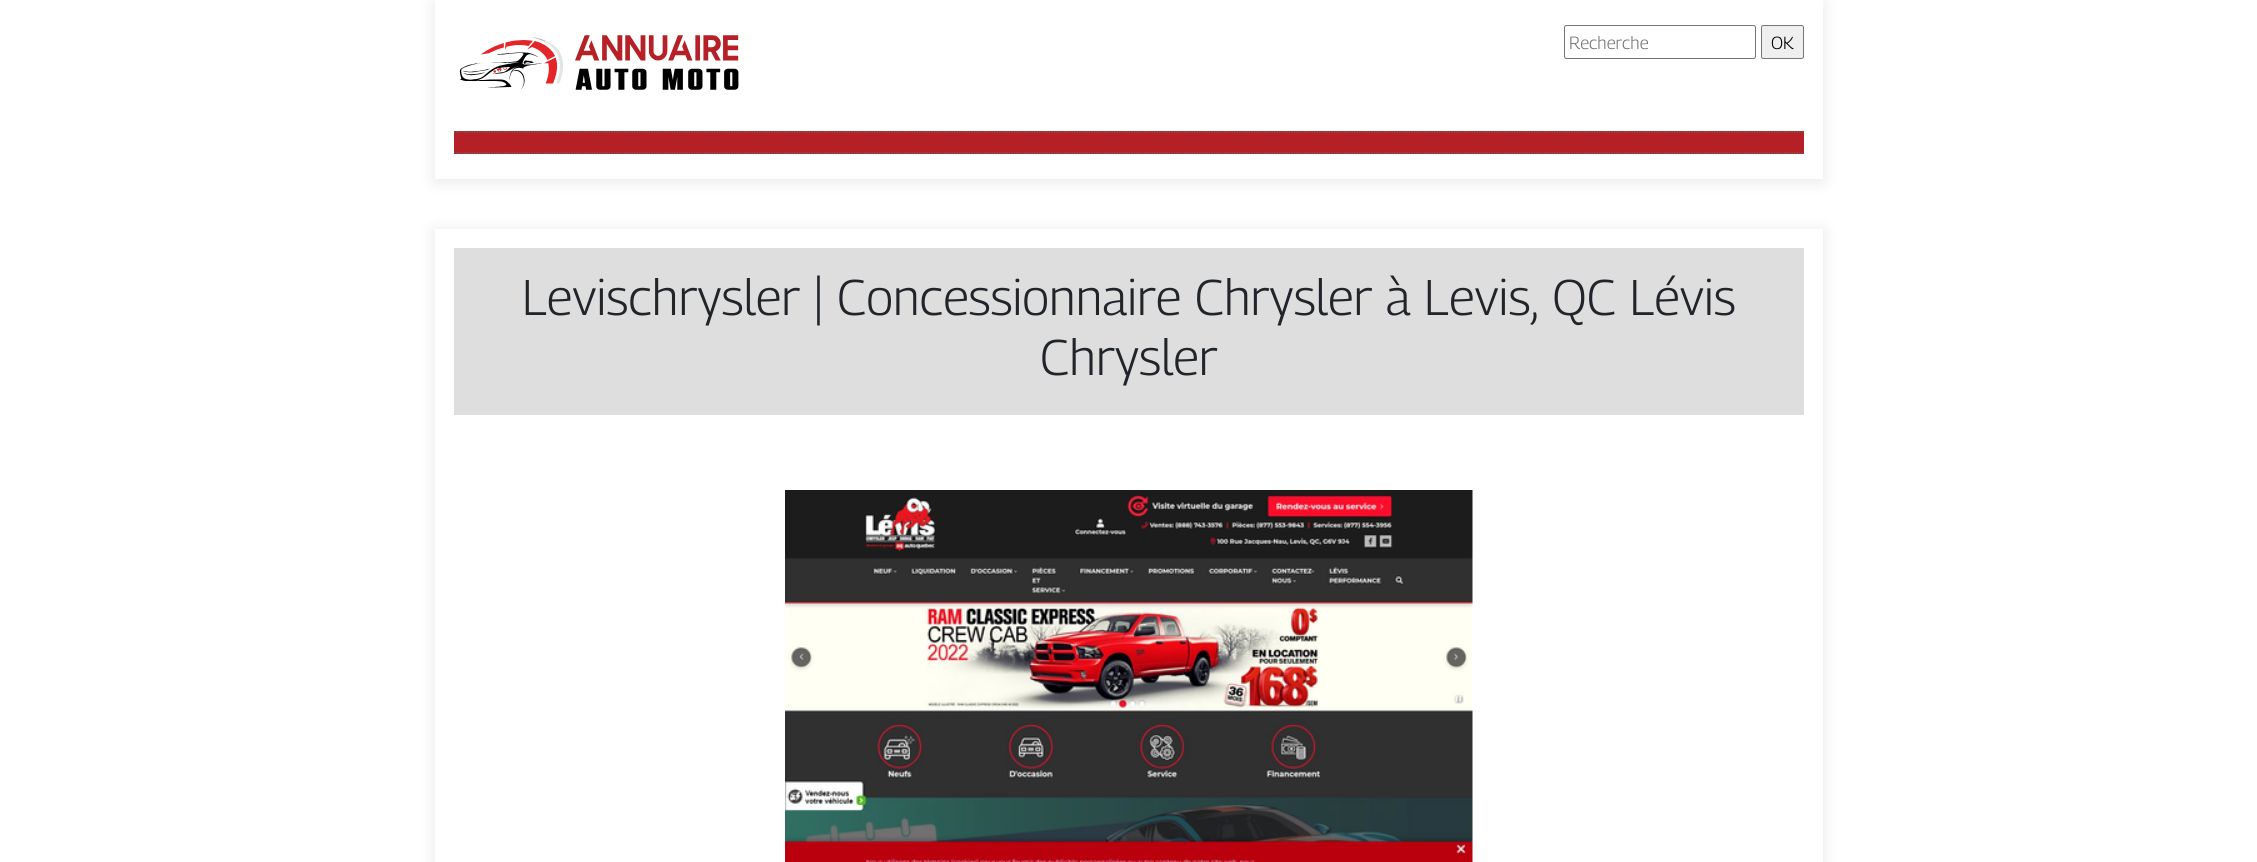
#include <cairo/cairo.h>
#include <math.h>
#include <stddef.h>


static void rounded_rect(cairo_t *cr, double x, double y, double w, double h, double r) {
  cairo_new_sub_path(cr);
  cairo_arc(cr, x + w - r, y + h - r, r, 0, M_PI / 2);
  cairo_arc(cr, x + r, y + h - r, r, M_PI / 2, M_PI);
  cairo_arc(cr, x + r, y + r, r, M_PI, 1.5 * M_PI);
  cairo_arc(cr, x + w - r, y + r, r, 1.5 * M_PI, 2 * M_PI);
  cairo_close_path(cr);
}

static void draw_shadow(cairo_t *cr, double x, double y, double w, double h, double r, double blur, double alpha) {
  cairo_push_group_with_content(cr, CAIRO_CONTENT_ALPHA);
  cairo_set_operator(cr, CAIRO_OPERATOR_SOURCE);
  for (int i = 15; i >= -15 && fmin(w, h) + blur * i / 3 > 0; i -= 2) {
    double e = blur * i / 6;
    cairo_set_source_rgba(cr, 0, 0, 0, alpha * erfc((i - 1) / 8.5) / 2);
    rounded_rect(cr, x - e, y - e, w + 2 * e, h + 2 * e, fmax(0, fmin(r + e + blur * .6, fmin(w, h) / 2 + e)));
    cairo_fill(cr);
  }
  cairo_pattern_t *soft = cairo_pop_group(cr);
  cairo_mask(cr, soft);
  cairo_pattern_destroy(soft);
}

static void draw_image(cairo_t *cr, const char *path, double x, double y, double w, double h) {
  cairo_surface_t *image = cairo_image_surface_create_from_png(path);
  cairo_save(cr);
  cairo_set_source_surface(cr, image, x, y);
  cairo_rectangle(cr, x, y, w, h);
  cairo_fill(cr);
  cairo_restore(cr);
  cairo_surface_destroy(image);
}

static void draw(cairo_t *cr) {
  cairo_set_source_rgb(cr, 1, 1, 1);
  cairo_paint(cr);
  cairo_set_source_rgb(cr, 0, 0, 0);
  draw_shadow(cr, 435, 3, 1388, 178, 0, 8, 0.1);
  cairo_set_source_rgb(cr, 1, 1, 1);
  cairo_rectangle(cr, 435, 0, 1388, 179);
  cairo_fill(cr);
  draw_image(cr, "images/1.png", 459, 35, 280, 55);
  rounded_rect(cr, 1564.5, 25.5, 191, 33, 2);
  cairo_set_source_rgb(cr, 118 / 255.0, 118 / 255.0, 118 / 255.0);
  cairo_set_line_width(cr, 1);
  cairo_stroke(cr);
  cairo_set_source_rgb(cr, 239 / 255.0, 239 / 255.0, 239 / 255.0);
  rounded_rect(cr, 1761.5, 25.5, 42, 33, 2);
  cairo_fill_preserve(cr);
  cairo_set_source_rgb(cr, 118 / 255.0, 118 / 255.0, 118 / 255.0);
  cairo_stroke(cr);
  cairo_set_source_rgb(cr, 181 / 255.0, 32 / 255.0, 38 / 255.0);
  cairo_rectangle(cr, 454, 131, 1350, 23);
  cairo_fill(cr);
  cairo_new_path(cr);
  cairo_move_to(cr, 454, 132);
  cairo_line_to(cr, 1804, 132);
  cairo_set_source_rgb(cr, 102 / 255.0, 102 / 255.0, 102 / 255.0);
  cairo_set_line_width(cr, 1.2);
  cairo_set_dash(cr, (double[]){1.25, 1.25}, 2, 0);
  cairo_stroke(cr);
  cairo_new_path(cr);
  cairo_move_to(cr, 454, 153);
  cairo_line_to(cr, 1804, 153);
  cairo_stroke(cr);
  cairo_set_source_rgb(cr, 0, 0, 0);
  draw_shadow(cr, 435, 231, 1388, 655, 0, 8, 0.1);
  cairo_set_source_rgb(cr, 1, 1, 1);
  cairo_rectangle(cr, 435, 229, 1388, 633);
  cairo_fill(cr);
  cairo_set_source_rgb(cr, 222 / 255.0, 222 / 255.0, 222 / 255.0);
  cairo_rectangle(cr, 454, 248, 1350, 167);
  cairo_fill(cr);
  draw_image(cr, "images/2.png", 785, 490, 688, 372);
  cairo_select_font_face(cr, "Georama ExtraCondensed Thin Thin", CAIRO_FONT_SLANT_NORMAL, CAIRO_FONT_WEIGHT_NORMAL);
  cairo_set_font_size(cr, 17.5);
  cairo_set_source_rgb(cr, 117 / 255.0, 117 / 255.0, 117 / 255.0);
  cairo_move_to(cr, 1569, 49);
  cairo_show_text(cr, "Recherche");
  cairo_set_source_rgb(cr, 0, 0, 0);
  cairo_move_to(cr, 1771, 49);
  cairo_show_text(cr, "OK");
  cairo_set_font_size(cr, 50);
  cairo_set_source_rgb(cr, 33 / 255.0, 37 / 255.0, 41 / 255.0);
  cairo_move_to(cr, 522, 315);
  cairo_show_text(cr, "Levischrysler | Concessionnaire Chrysler à Levis, QC Lévis");
  cairo_move_to(cr, 1040, 375);
  cairo_show_text(cr, "Chrysler");
}

int main(void) {
  cairo_surface_t *surface = cairo_image_surface_create(CAIRO_FORMAT_RGB24, 2257, 862);
  cairo_t *cr = cairo_create(surface);
  cairo_font_options_t *options = cairo_font_options_create();
  cairo_font_options_set_hint_metrics(options, CAIRO_HINT_METRICS_OFF);
  cairo_font_options_set_hint_style(options, CAIRO_HINT_STYLE_NONE);
  cairo_set_font_options(cr, options);
  cairo_set_miter_limit(cr, 4);
  draw(cr);
  cairo_surface_write_to_png(surface, "out.png");
  cairo_font_options_destroy(options);
  cairo_destroy(cr);
  cairo_surface_destroy(surface);
  return 0;
}
